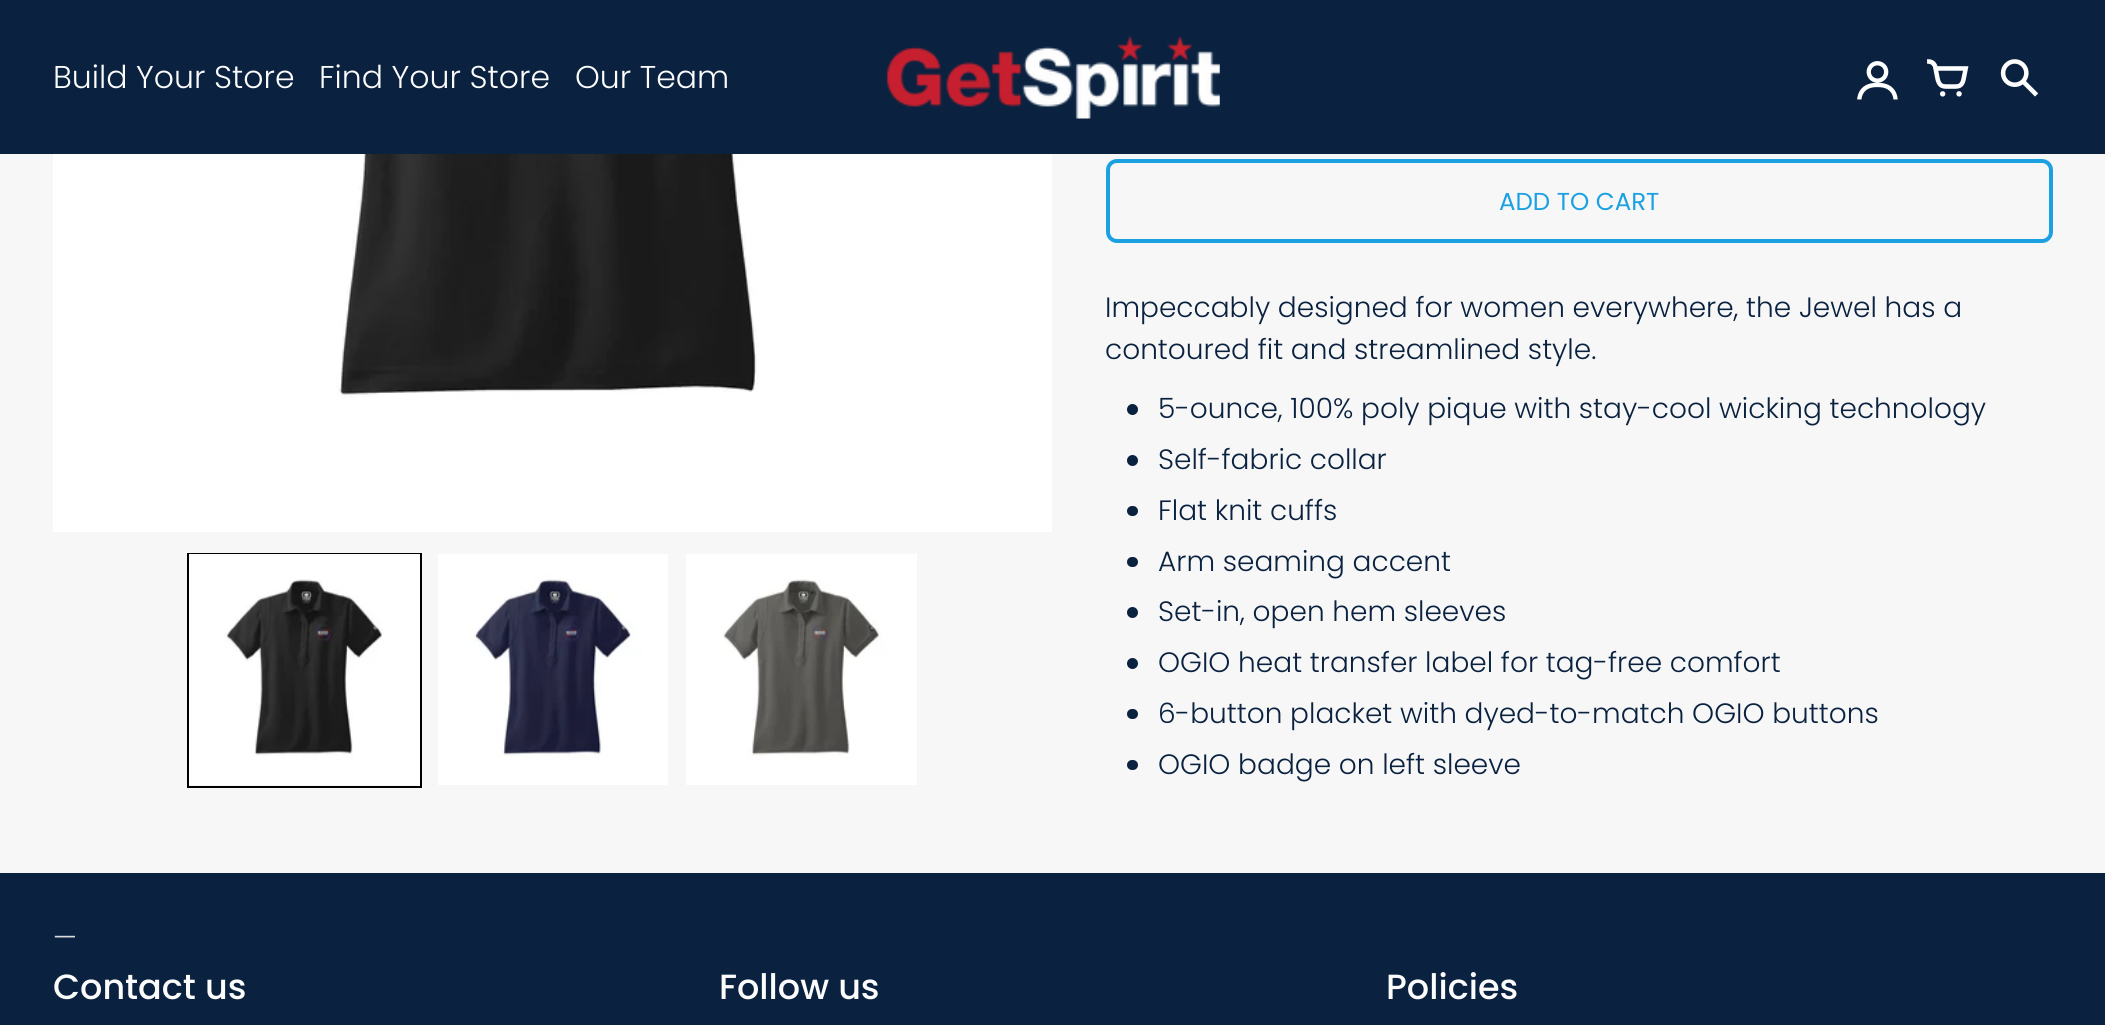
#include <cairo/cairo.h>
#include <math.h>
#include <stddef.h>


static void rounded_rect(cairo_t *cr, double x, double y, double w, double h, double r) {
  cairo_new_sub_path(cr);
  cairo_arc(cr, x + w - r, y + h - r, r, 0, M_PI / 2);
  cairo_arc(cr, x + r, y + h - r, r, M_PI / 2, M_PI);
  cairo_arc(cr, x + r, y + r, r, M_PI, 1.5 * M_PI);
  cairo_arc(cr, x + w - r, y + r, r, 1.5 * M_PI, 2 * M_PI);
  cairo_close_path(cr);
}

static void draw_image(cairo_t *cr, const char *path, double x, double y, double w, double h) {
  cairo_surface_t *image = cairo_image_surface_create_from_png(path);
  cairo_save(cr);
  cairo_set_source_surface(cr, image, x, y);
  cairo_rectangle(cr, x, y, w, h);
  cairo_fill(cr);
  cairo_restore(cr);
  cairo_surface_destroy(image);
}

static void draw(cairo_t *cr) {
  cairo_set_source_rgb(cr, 247 / 255.0, 247 / 255.0, 247 / 255.0);
  cairo_paint(cr);
  cairo_set_source_rgb(cr, 10 / 255.0, 34 / 255.0, 64 / 255.0);
  cairo_rectangle(cr, 0, 0, 2105, 154);
  cairo_fill(cr);
  draw_image(cr, "images/1.png", 886, 36, 334, 83);
  draw_image(cr, "images/2.png", 1857, 61, 41, 39);
  draw_image(cr, "images/3.png", 1927, 59, 42, 38);
  draw_image(cr, "images/4.png", 2000, 59, 39, 38);
  draw_image(cr, "images/5.png", 53, 154, 999, 378);
  cairo_rectangle(cr, 188, 554, 233, 233);
  cairo_set_source_rgb(cr, 0, 0, 0);
  cairo_stroke(cr);
  draw_image(cr, "images/6.png", 189, 554, 231, 231);
  draw_image(cr, "images/7.png", 438, 554, 230, 231);
  draw_image(cr, "images/8.png", 686, 554, 231, 231);
  rounded_rect(cr, 1108, 161, 943, 80, 9);
  cairo_set_source_rgb(cr, 27 / 255.0, 161 / 255.0, 226 / 255.0);
  cairo_set_line_width(cr, 4);
  cairo_stroke(cr);
  cairo_set_source_rgb(cr, 10 / 255.0, 34 / 255.0, 64 / 255.0);
  cairo_arc(cr, 1132.5, 409.5, 5.5, 0, 2 * M_PI);
  cairo_fill(cr);
  cairo_arc(cr, 1132.5, 460.5, 5.5, 0, 2 * M_PI);
  cairo_fill(cr);
  rounded_rect(cr, 1127, 506, 11, 10, 5);
  cairo_fill(cr);
  rounded_rect(cr, 1127, 557, 11, 10, 5);
  cairo_fill(cr);
  cairo_arc(cr, 1132.5, 612.5, 5.5, 0, 2 * M_PI);
  cairo_fill(cr);
  cairo_arc(cr, 1132.5, 663.5, 5.5, 0, 2 * M_PI);
  cairo_fill(cr);
  rounded_rect(cr, 1127, 709, 11, 10, 5);
  cairo_fill(cr);
  rounded_rect(cr, 1127, 760, 11, 10, 5);
  cairo_fill(cr);
  cairo_rectangle(cr, 0, 873, 2105, 152);
  cairo_fill(cr);
  cairo_select_font_face(cr, "Poppins Light", CAIRO_FONT_SLANT_NORMAL, CAIRO_FONT_WEIGHT_NORMAL);
  cairo_set_font_size(cr, 31.5);
  cairo_set_source_rgb(cr, 252 / 255.0, 252 / 255.0, 252 / 255.0);
  cairo_move_to(cr, 53, 88);
  cairo_show_text(cr, "Build Your Store");
  cairo_move_to(cr, 319, 88);
  cairo_show_text(cr, "Find Your Store");
  cairo_move_to(cr, 575, 88);
  cairo_show_text(cr, "Our Team");
  cairo_select_font_face(cr, "Poppins", CAIRO_FONT_SLANT_NORMAL, CAIRO_FONT_WEIGHT_NORMAL);
  cairo_set_font_size(cr, 24.5);
  cairo_set_source_rgb(cr, 27 / 255.0, 161 / 255.0, 226 / 255.0);
  cairo_move_to(cr, 1499, 210);
  cairo_show_text(cr, "ADD TO CART");
  cairo_select_font_face(cr, "Poppins Light", CAIRO_FONT_SLANT_NORMAL, CAIRO_FONT_WEIGHT_NORMAL);
  cairo_set_font_size(cr, 28);
  cairo_set_source_rgb(cr, 10 / 255.0, 34 / 255.0, 64 / 255.0);
  cairo_move_to(cr, 1105, 317);
  cairo_show_text(cr, "Impeccably designed for women everywhere, the Jewel has a");
  cairo_move_to(cr, 1105, 359);
  cairo_show_text(cr, "contoured fit and streamlined style.");
  cairo_move_to(cr, 1158, 418);
  cairo_show_text(cr, "5-ounce, 100% poly pique with stay-cool wicking technology");
  cairo_move_to(cr, 1158, 469);
  cairo_show_text(cr, "Self-fabric collar");
  cairo_move_to(cr, 1158, 520);
  cairo_show_text(cr, "Flat knit cuffs");
  cairo_move_to(cr, 1158, 571);
  cairo_show_text(cr, "Arm seaming accent");
  cairo_move_to(cr, 1158, 621);
  cairo_show_text(cr, "Set-in, open hem sleeves");
  cairo_move_to(cr, 1158, 672);
  cairo_show_text(cr, "OGIO heat transfer label for tag-free comfort");
  cairo_move_to(cr, 1158, 723);
  cairo_show_text(cr, "6-button placket with dyed-to-match OGIO buttons");
  cairo_move_to(cr, 1158, 774);
  cairo_show_text(cr, "OGIO badge on left sleeve");
  cairo_set_source_rgb(cr, 220 / 255.0, 220 / 255.0, 220 / 255.0);
  cairo_move_to(cr, 53, 947);
  cairo_show_text(cr, "—");
  cairo_select_font_face(cr, "Poppins Medium", CAIRO_FONT_SLANT_NORMAL, CAIRO_FONT_WEIGHT_NORMAL);
  cairo_set_font_size(cr, 35);
  cairo_set_source_rgb(cr, 252 / 255.0, 252 / 255.0, 252 / 255.0);
  cairo_move_to(cr, 53, 999);
  cairo_show_text(cr, "Contact us");
  cairo_move_to(cr, 719, 999);
  cairo_show_text(cr, "Follow us");
  cairo_move_to(cr, 1386, 999);
  cairo_show_text(cr, "Policies");
}

int main(void) {
  cairo_surface_t *surface = cairo_image_surface_create(CAIRO_FORMAT_RGB24, 2105, 1025);
  cairo_t *cr = cairo_create(surface);
  cairo_font_options_t *options = cairo_font_options_create();
  cairo_font_options_set_hint_metrics(options, CAIRO_HINT_METRICS_OFF);
  cairo_font_options_set_hint_style(options, CAIRO_HINT_STYLE_NONE);
  cairo_set_font_options(cr, options);
  cairo_set_miter_limit(cr, 4);
  draw(cr);
  cairo_surface_write_to_png(surface, "out.png");
  cairo_font_options_destroy(options);
  cairo_destroy(cr);
  cairo_surface_destroy(surface);
  return 0;
}
